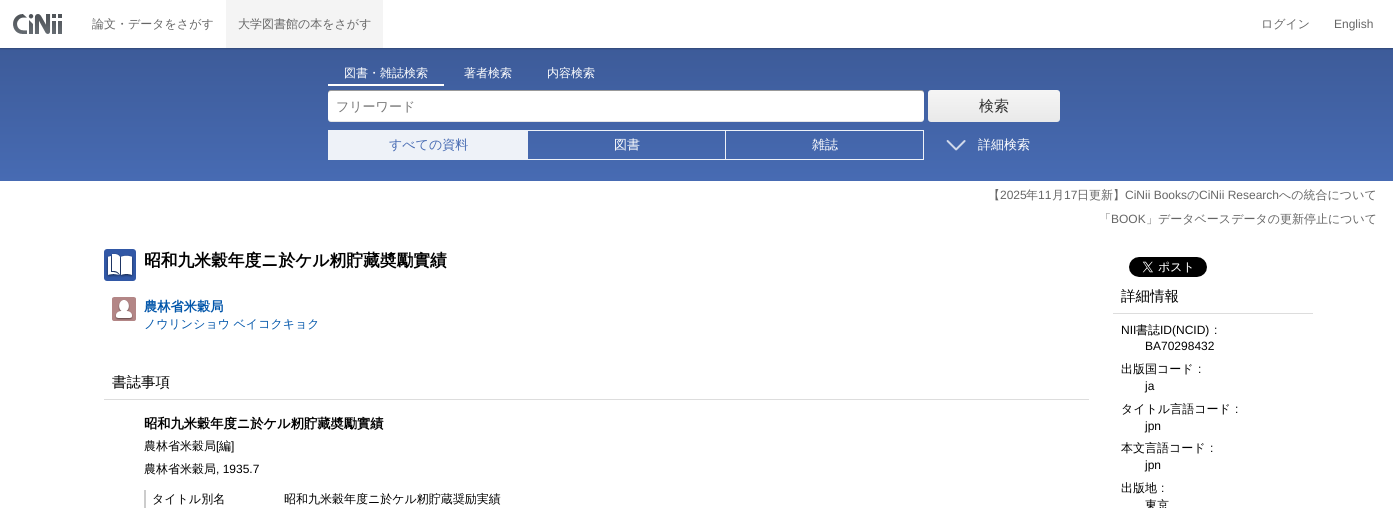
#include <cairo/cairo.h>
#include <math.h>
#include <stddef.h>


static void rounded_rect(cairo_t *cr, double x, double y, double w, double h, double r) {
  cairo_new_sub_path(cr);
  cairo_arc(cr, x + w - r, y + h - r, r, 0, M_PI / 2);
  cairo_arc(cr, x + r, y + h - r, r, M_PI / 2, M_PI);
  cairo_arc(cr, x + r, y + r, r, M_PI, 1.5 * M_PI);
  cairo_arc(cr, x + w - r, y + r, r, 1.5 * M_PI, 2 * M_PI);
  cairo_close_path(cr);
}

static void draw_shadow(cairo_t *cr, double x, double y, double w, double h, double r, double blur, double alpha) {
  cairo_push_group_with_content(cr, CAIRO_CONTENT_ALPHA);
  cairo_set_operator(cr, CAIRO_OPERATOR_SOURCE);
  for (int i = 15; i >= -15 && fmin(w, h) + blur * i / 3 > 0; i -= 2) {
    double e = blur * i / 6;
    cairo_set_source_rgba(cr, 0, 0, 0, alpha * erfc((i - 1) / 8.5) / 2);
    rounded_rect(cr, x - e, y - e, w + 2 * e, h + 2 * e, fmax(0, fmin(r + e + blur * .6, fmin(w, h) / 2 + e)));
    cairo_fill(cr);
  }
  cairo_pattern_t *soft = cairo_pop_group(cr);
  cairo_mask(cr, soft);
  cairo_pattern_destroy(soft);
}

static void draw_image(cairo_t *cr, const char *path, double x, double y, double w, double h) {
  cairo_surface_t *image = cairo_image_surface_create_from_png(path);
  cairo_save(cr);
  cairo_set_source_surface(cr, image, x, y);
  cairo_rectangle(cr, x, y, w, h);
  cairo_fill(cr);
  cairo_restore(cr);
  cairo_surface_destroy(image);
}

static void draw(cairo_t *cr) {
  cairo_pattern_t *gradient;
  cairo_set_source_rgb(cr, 1, 1, 1);
  cairo_paint(cr);
  gradient = cairo_pattern_create_linear(697, 48, 697, 181);
  cairo_pattern_add_color_stop_rgba(gradient, 0, 61 / 255.0, 91 / 255.0, 153 / 255.0, 1);
  cairo_pattern_add_color_stop_rgba(gradient, 1, 71 / 255.0, 107 / 255.0, 179 / 255.0, 1);
  cairo_set_source(cr, gradient);
  cairo_pattern_destroy(gradient);
  cairo_rectangle(cr, 0, 48, 1393, 133);
  cairo_fill(cr);
  cairo_save(cr);
  cairo_rectangle(cr, 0, 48, 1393, 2);
  cairo_clip(cr);
  cairo_set_source_rgb(cr, 0, 0, 0);
  draw_shadow(cr, 0, 1, 1393, 48, 0, 0.5, 0.2);
  cairo_restore(cr);
  draw_image(cr, "images/1.png", 13, 14, 49, 20);
  cairo_set_source_rgb(cr, 244 / 255.0, 244 / 255.0, 244 / 255.0);
  cairo_rectangle(cr, 226, 0, 157, 48);
  cairo_fill(cr);
  cairo_set_source_rgb(cr, 1, 1, 1);
  cairo_rectangle(cr, 328, 84, 116, 2);
  cairo_fill(cr);
  rounded_rect(cr, 328, 90, 596, 32, 3);
  cairo_fill(cr);
  cairo_set_source_rgba(cr, 0, 0, 0, 0.1);
  cairo_new_path(cr);
  cairo_move_to(cr, 328, 118);
  cairo_line_to(cr, 328, 119);
  cairo_curve_to(cr, 328, 121, 329, 122, 331, 122);
  cairo_line_to(cr, 921, 122);
  cairo_curve_to(cr, 923, 122, 924, 121, 924, 119);
  cairo_line_to(cr, 924, 118);
  cairo_curve_to(cr, 924, 120, 923, 121, 921, 121);
  cairo_line_to(cr, 331, 121);
  cairo_curve_to(cr, 329, 121, 328, 120, 328, 118);
  cairo_close_path(cr);
  cairo_fill(cr);
  cairo_set_source_rgba(cr, 0, 0, 0, 0.4);
  cairo_new_path(cr);
  cairo_move_to(cr, 331, 91);
  cairo_line_to(cr, 921, 91);
  cairo_curve_to(cr, 923, 91, 924, 92, 924, 94);
  cairo_line_to(cr, 924, 93);
  cairo_curve_to(cr, 924, 91, 923, 90, 921, 90);
  cairo_line_to(cr, 331, 90);
  cairo_curve_to(cr, 329, 90, 328, 91, 328, 93);
  cairo_line_to(cr, 328, 94);
  cairo_curve_to(cr, 328, 92, 329, 91, 331, 91);
  cairo_close_path(cr);
  cairo_fill(cr);
  gradient = cairo_pattern_create_linear(994, 90, 994, 122);
  cairo_pattern_add_color_stop_rgba(gradient, 0, 245 / 255.0, 245 / 255.0, 245 / 255.0, 1);
  cairo_pattern_add_color_stop_rgba(gradient, 1, 233 / 255.0, 233 / 255.0, 233 / 255.0, 1);
  cairo_set_source(cr, gradient);
  cairo_pattern_destroy(gradient);
  rounded_rect(cr, 928, 90, 132, 32, 3);
  cairo_fill(cr);
  cairo_set_source_rgb(cr, 238 / 255.0, 242 / 255.0, 248 / 255.0);
  cairo_rectangle(cr, 328, 130, 200, 30);
  cairo_fill(cr);
  cairo_rectangle(cr, 528, 130, 396, 1);
  cairo_fill(cr);
  cairo_rectangle(cr, 725, 130, 1, 30);
  cairo_fill(cr);
  cairo_rectangle(cr, 528, 159, 198, 1);
  cairo_fill(cr);
  cairo_rectangle(cr, 923, 130, 1, 30);
  cairo_fill(cr);
  cairo_rectangle(cr, 726, 159, 198, 1);
  cairo_fill(cr);
  draw_image(cr, "images/2.png", 946, 140, 20, 11);
  draw_image(cr, "images/3.png", 104, 249, 32, 32);
  draw_image(cr, "images/4.png", 112, 297, 24, 24);
  cairo_set_source_rgb(cr, 221 / 255.0, 221 / 255.0, 221 / 255.0);
  cairo_rectangle(cr, 104, 399, 985, 1);
  cairo_fill(cr);
  cairo_set_source_rgb(cr, 204 / 255.0, 204 / 255.0, 204 / 255.0);
  cairo_rectangle(cr, 144, 490, 2, 18);
  cairo_fill(cr);
  draw_image(cr, "images/5.png", 1129, 257, 78, 20);
  cairo_set_source_rgb(cr, 221 / 255.0, 221 / 255.0, 221 / 255.0);
  cairo_rectangle(cr, 1113, 313, 200, 1);
  cairo_fill(cr);
  cairo_select_font_face(cr, "WenQuanYi Zen Hei Medium", CAIRO_FONT_SLANT_NORMAL, CAIRO_FONT_WEIGHT_NORMAL);
  cairo_set_font_size(cr, 12);
  cairo_set_source_rgb(cr, 102 / 255.0, 102 / 255.0, 102 / 255.0);
  cairo_move_to(cr, 92, 28);
  cairo_show_text(cr, "論文・データをさがす");
  cairo_move_to(cr, 238, 28);
  cairo_show_text(cr, "大学図書館の本をさがす");
  cairo_move_to(cr, 1261, 28);
  cairo_show_text(cr, "ログイン");
  cairo_select_font_face(cr, "Liberation Sans", CAIRO_FONT_SLANT_NORMAL, CAIRO_FONT_WEIGHT_NORMAL);
  cairo_move_to(cr, 1334, 28);
  cairo_show_text(cr, "English");
  cairo_select_font_face(cr, "WenQuanYi Zen Hei Medium", CAIRO_FONT_SLANT_NORMAL, CAIRO_FONT_WEIGHT_NORMAL);
  cairo_set_source_rgb(cr, 1, 1, 1);
  cairo_move_to(cr, 344, 77);
  cairo_show_text(cr, "図書・雑誌検索");
  cairo_move_to(cr, 464, 77);
  cairo_show_text(cr, "著者検索");
  cairo_move_to(cr, 547, 77);
  cairo_show_text(cr, "内容検索");
  cairo_set_font_size(cr, 13);
  cairo_set_source_rgb(cr, 117 / 255.0, 117 / 255.0, 117 / 255.0);
  cairo_move_to(cr, 336, 111);
  cairo_show_text(cr, "フリーワード");
  cairo_set_font_size(cr, 15);
  cairo_set_source_rgb(cr, 51 / 255.0, 51 / 255.0, 51 / 255.0);
  cairo_move_to(cr, 979, 111);
  cairo_show_text(cr, "検索");
  cairo_set_font_size(cr, 13);
  cairo_set_source_rgb(cr, 71 / 255.0, 107 / 255.0, 179 / 255.0);
  cairo_move_to(cr, 389, 149);
  cairo_show_text(cr, "すべての資料");
  cairo_set_source_rgb(cr, 1, 1, 1);
  cairo_move_to(cr, 614, 149);
  cairo_show_text(cr, "図書");
  cairo_move_to(cr, 812, 149);
  cairo_show_text(cr, "雑誌");
  cairo_move_to(cr, 978, 149);
  cairo_show_text(cr, "詳細検索");
  cairo_set_font_size(cr, 12);
  cairo_set_source_rgb(cr, 102 / 255.0, 102 / 255.0, 102 / 255.0);
  cairo_move_to(cr, 988, 199);
  cairo_show_text(cr, "【");
  cairo_select_font_face(cr, "Liberation Sans", CAIRO_FONT_SLANT_NORMAL, CAIRO_FONT_WEIGHT_NORMAL);
  cairo_move_to(cr, 1000, 199);
  cairo_show_text(cr, "2025");
  cairo_select_font_face(cr, "WenQuanYi Zen Hei Medium", CAIRO_FONT_SLANT_NORMAL, CAIRO_FONT_WEIGHT_NORMAL);
  cairo_move_to(cr, 1026, 199);
  cairo_show_text(cr, "年");
  cairo_select_font_face(cr, "Liberation Sans", CAIRO_FONT_SLANT_NORMAL, CAIRO_FONT_WEIGHT_NORMAL);
  cairo_move_to(cr, 1038, 199);
  cairo_show_text(cr, "11");
  cairo_select_font_face(cr, "WenQuanYi Zen Hei Medium", CAIRO_FONT_SLANT_NORMAL, CAIRO_FONT_WEIGHT_NORMAL);
  cairo_move_to(cr, 1052, 199);
  cairo_show_text(cr, "月");
  cairo_select_font_face(cr, "Liberation Sans", CAIRO_FONT_SLANT_NORMAL, CAIRO_FONT_WEIGHT_NORMAL);
  cairo_move_to(cr, 1064, 199);
  cairo_show_text(cr, "17");
  cairo_select_font_face(cr, "WenQuanYi Zen Hei Medium", CAIRO_FONT_SLANT_NORMAL, CAIRO_FONT_WEIGHT_NORMAL);
  cairo_move_to(cr, 1077, 199);
  cairo_show_text(cr, "日更新】");
  cairo_select_font_face(cr, "Liberation Sans", CAIRO_FONT_SLANT_NORMAL, CAIRO_FONT_WEIGHT_NORMAL);
  cairo_move_to(cr, 1125, 199);
  cairo_show_text(cr, "CiNii Books");
  cairo_select_font_face(cr, "WenQuanYi Zen Hei Medium", CAIRO_FONT_SLANT_NORMAL, CAIRO_FONT_WEIGHT_NORMAL);
  cairo_move_to(cr, 1187, 199);
  cairo_show_text(cr, "の");
  cairo_select_font_face(cr, "Liberation Sans", CAIRO_FONT_SLANT_NORMAL, CAIRO_FONT_WEIGHT_NORMAL);
  cairo_move_to(cr, 1199, 199);
  cairo_show_text(cr, "CiNii Research");
  cairo_select_font_face(cr, "WenQuanYi Zen Hei Medium", CAIRO_FONT_SLANT_NORMAL, CAIRO_FONT_WEIGHT_NORMAL);
  cairo_move_to(cr, 1279, 199);
  cairo_show_text(cr, "への統合について");
  cairo_move_to(cr, 1099, 223);
  cairo_show_text(cr, "「");
  cairo_select_font_face(cr, "Liberation Sans", CAIRO_FONT_SLANT_NORMAL, CAIRO_FONT_WEIGHT_NORMAL);
  cairo_move_to(cr, 1111, 223);
  cairo_show_text(cr, "BOOK");
  cairo_select_font_face(cr, "WenQuanYi Zen Hei Medium", CAIRO_FONT_SLANT_NORMAL, CAIRO_FONT_WEIGHT_NORMAL);
  cairo_move_to(cr, 1146, 223);
  cairo_show_text(cr, "」データベースデータの更新停止について");
  cairo_select_font_face(cr, "WenQuanYi Zen Hei", CAIRO_FONT_SLANT_NORMAL, CAIRO_FONT_WEIGHT_BOLD);
  cairo_set_font_size(cr, 16.75);
  cairo_set_source_rgb(cr, 0, 0, 0);
  cairo_move_to(cr, 144, 266);
  cairo_show_text(cr, "昭和九米穀年度ニ於ケル籾貯藏奬勵實績");
  cairo_set_font_size(cr, 13.25);
  cairo_set_source_rgb(cr, 0, 85 / 255.0, 170 / 255.0);
  cairo_move_to(cr, 144, 311);
  cairo_show_text(cr, "農林省米穀局");
  cairo_select_font_face(cr, "WenQuanYi Zen Hei Medium", CAIRO_FONT_SLANT_NORMAL, CAIRO_FONT_WEIGHT_NORMAL);
  cairo_set_font_size(cr, 12);
  cairo_move_to(cr, 144, 328);
  cairo_show_text(cr, "ノウリンショウ ベイコクキョク");
  cairo_set_font_size(cr, 14.5);
  cairo_set_source_rgb(cr, 0, 0, 0);
  cairo_move_to(cr, 112, 387);
  cairo_show_text(cr, "書誌事項");
  cairo_select_font_face(cr, "WenQuanYi Zen Hei", CAIRO_FONT_SLANT_NORMAL, CAIRO_FONT_WEIGHT_BOLD);
  cairo_set_font_size(cr, 13.25);
  cairo_move_to(cr, 144, 428);
  cairo_show_text(cr, "昭和九米穀年度ニ於ケル籾貯藏奬勵實績");
  cairo_select_font_face(cr, "WenQuanYi Zen Hei Medium", CAIRO_FONT_SLANT_NORMAL, CAIRO_FONT_WEIGHT_NORMAL);
  cairo_set_font_size(cr, 12);
  cairo_move_to(cr, 144, 450);
  cairo_show_text(cr, "農林省米穀局");
  cairo_select_font_face(cr, "Liberation Sans", CAIRO_FONT_SLANT_NORMAL, CAIRO_FONT_WEIGHT_NORMAL);
  cairo_move_to(cr, 216, 450);
  cairo_show_text(cr, "[");
  cairo_select_font_face(cr, "WenQuanYi Zen Hei Medium", CAIRO_FONT_SLANT_NORMAL, CAIRO_FONT_WEIGHT_NORMAL);
  cairo_move_to(cr, 219, 450);
  cairo_show_text(cr, "編");
  cairo_select_font_face(cr, "Liberation Sans", CAIRO_FONT_SLANT_NORMAL, CAIRO_FONT_WEIGHT_NORMAL);
  cairo_move_to(cr, 231, 450);
  cairo_show_text(cr, "]");
  cairo_select_font_face(cr, "WenQuanYi Zen Hei Medium", CAIRO_FONT_SLANT_NORMAL, CAIRO_FONT_WEIGHT_NORMAL);
  cairo_move_to(cr, 144, 473);
  cairo_show_text(cr, "農林省米穀局");
  cairo_select_font_face(cr, "Liberation Sans", CAIRO_FONT_SLANT_NORMAL, CAIRO_FONT_WEIGHT_NORMAL);
  cairo_move_to(cr, 216, 473);
  cairo_show_text(cr, ", 1935.7");
  cairo_select_font_face(cr, "WenQuanYi Zen Hei Medium", CAIRO_FONT_SLANT_NORMAL, CAIRO_FONT_WEIGHT_NORMAL);
  cairo_move_to(cr, 152, 503);
  cairo_show_text(cr, "タイトル別名");
  cairo_move_to(cr, 284, 503);
  cairo_show_text(cr, "昭和九米穀年度ニ於ケル籾貯蔵奨励実績");
  cairo_set_font_size(cr, 14.5);
  cairo_move_to(cr, 1121, 301);
  cairo_show_text(cr, "詳細情報");
  cairo_select_font_face(cr, "Liberation Sans", CAIRO_FONT_SLANT_NORMAL, CAIRO_FONT_WEIGHT_NORMAL);
  cairo_set_font_size(cr, 12);
  cairo_move_to(cr, 1121, 334);
  cairo_show_text(cr, "NII");
  cairo_select_font_face(cr, "WenQuanYi Zen Hei Medium", CAIRO_FONT_SLANT_NORMAL, CAIRO_FONT_WEIGHT_NORMAL);
  cairo_move_to(cr, 1136, 334);
  cairo_show_text(cr, "書誌");
  cairo_select_font_face(cr, "Liberation Sans", CAIRO_FONT_SLANT_NORMAL, CAIRO_FONT_WEIGHT_NORMAL);
  cairo_move_to(cr, 1160, 334);
  cairo_show_text(cr, "ID(NCID)");
  cairo_move_to(cr, 1214, 334);
  cairo_show_text(cr, ":");
  cairo_move_to(cr, 1145, 350);
  cairo_show_text(cr, "BA70298432");
  cairo_select_font_face(cr, "WenQuanYi Zen Hei Medium", CAIRO_FONT_SLANT_NORMAL, CAIRO_FONT_WEIGHT_NORMAL);
  cairo_move_to(cr, 1121, 373);
  cairo_show_text(cr, "出版国コード");
  cairo_select_font_face(cr, "Liberation Sans", CAIRO_FONT_SLANT_NORMAL, CAIRO_FONT_WEIGHT_NORMAL);
  cairo_move_to(cr, 1198, 373);
  cairo_show_text(cr, ":");
  cairo_move_to(cr, 1145, 390);
  cairo_show_text(cr, "ja");
  cairo_select_font_face(cr, "WenQuanYi Zen Hei Medium", CAIRO_FONT_SLANT_NORMAL, CAIRO_FONT_WEIGHT_NORMAL);
  cairo_move_to(cr, 1121, 413);
  cairo_show_text(cr, "タイトル言語コード");
  cairo_select_font_face(cr, "Liberation Sans", CAIRO_FONT_SLANT_NORMAL, CAIRO_FONT_WEIGHT_NORMAL);
  cairo_move_to(cr, 1235, 413);
  cairo_show_text(cr, ":");
  cairo_move_to(cr, 1145, 430);
  cairo_show_text(cr, "jpn");
  cairo_select_font_face(cr, "WenQuanYi Zen Hei Medium", CAIRO_FONT_SLANT_NORMAL, CAIRO_FONT_WEIGHT_NORMAL);
  cairo_move_to(cr, 1121, 452);
  cairo_show_text(cr, "本文言語コード");
  cairo_select_font_face(cr, "Liberation Sans", CAIRO_FONT_SLANT_NORMAL, CAIRO_FONT_WEIGHT_NORMAL);
  cairo_move_to(cr, 1210, 452);
  cairo_show_text(cr, ":");
  cairo_move_to(cr, 1145, 469);
  cairo_show_text(cr, "jpn");
  cairo_select_font_face(cr, "WenQuanYi Zen Hei Medium", CAIRO_FONT_SLANT_NORMAL, CAIRO_FONT_WEIGHT_NORMAL);
  cairo_move_to(cr, 1121, 492);
  cairo_show_text(cr, "出版地");
  cairo_select_font_face(cr, "Liberation Sans", CAIRO_FONT_SLANT_NORMAL, CAIRO_FONT_WEIGHT_NORMAL);
  cairo_move_to(cr, 1161, 492);
  cairo_show_text(cr, ":");
  cairo_select_font_face(cr, "WenQuanYi Zen Hei Medium", CAIRO_FONT_SLANT_NORMAL, CAIRO_FONT_WEIGHT_NORMAL);
  cairo_move_to(cr, 1145, 509);
  cairo_show_text(cr, "東京");
}

int main(void) {
  cairo_surface_t *surface = cairo_image_surface_create(CAIRO_FORMAT_RGB24, 1393, 508);
  cairo_t *cr = cairo_create(surface);
  cairo_font_options_t *options = cairo_font_options_create();
  cairo_font_options_set_hint_metrics(options, CAIRO_HINT_METRICS_OFF);
  cairo_font_options_set_hint_style(options, CAIRO_HINT_STYLE_NONE);
  cairo_set_font_options(cr, options);
  cairo_set_miter_limit(cr, 4);
  draw(cr);
  cairo_surface_write_to_png(surface, "out.png");
  cairo_font_options_destroy(options);
  cairo_destroy(cr);
  cairo_surface_destroy(surface);
  return 0;
}
